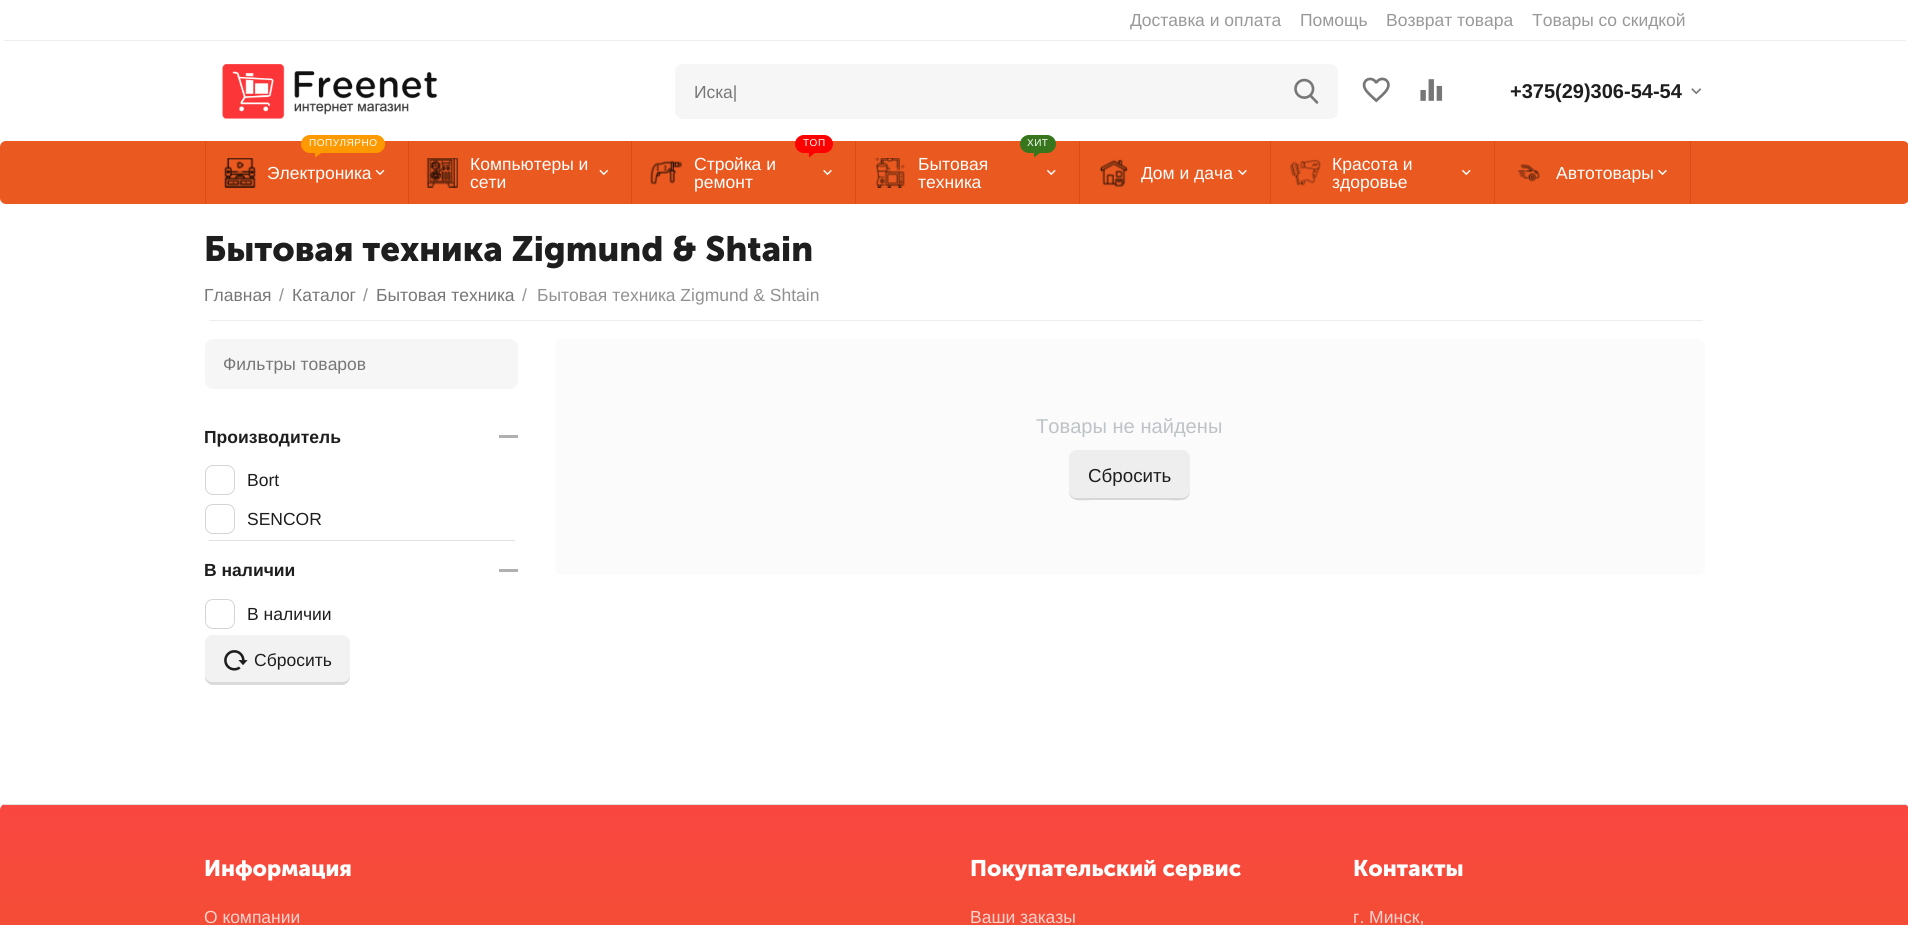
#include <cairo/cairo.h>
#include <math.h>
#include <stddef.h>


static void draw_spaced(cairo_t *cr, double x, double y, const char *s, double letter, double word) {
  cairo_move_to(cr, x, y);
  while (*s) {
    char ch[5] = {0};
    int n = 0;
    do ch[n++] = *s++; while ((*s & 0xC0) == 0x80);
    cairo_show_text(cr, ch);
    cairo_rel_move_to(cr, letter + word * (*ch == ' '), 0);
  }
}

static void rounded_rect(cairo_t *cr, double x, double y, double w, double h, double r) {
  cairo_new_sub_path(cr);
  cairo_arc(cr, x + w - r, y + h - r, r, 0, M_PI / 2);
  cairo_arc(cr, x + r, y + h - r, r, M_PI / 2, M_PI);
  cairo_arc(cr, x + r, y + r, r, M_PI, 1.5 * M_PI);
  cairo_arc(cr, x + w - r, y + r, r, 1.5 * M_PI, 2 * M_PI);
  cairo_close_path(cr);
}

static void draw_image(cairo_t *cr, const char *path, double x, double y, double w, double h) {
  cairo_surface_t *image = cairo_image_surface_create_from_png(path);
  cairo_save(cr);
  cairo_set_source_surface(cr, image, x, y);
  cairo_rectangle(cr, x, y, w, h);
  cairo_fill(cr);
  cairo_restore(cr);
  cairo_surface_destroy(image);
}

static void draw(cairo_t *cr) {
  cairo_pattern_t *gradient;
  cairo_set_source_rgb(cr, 1, 1, 1);
  cairo_paint(cr);
  cairo_set_source_rgb(cr, 238 / 255.0, 238 / 255.0, 238 / 255.0);
  cairo_rectangle(cr, 4, 40, 1902, 1);
  cairo_fill(cr);
  draw_image(cr, "images/1.png", 222, 64, 216, 55);
  cairo_set_source_rgb(cr, 246 / 255.0, 246 / 255.0, 246 / 255.0);
  rounded_rect(cr, 675, 64, 663, 55, 8);
  cairo_fill(cr);
  draw_image(cr, "images/2.png", 1294, 78, 25, 26);
  draw_image(cr, "images/3.png", 1362, 77, 28, 26);
  draw_image(cr, "images/4.png", 1420, 79, 23, 22);
  draw_image(cr, "images/5.png", 1691, 88, 11, 7);
  cairo_set_source_rgb(cr, 234 / 255.0, 89 / 255.0, 32 / 255.0);
  rounded_rect(cr, 0, 141, 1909, 63, 6);
  cairo_fill(cr);
  cairo_set_source_rgb(cr, 220 / 255.0, 77 / 255.0, 21 / 255.0);
  cairo_rectangle(cr, 408, 141, 1, 63);
  cairo_fill(cr);
  cairo_rectangle(cr, 205, 141, 1, 63);
  cairo_fill(cr);
  draw_image(cr, "images/6.png", 224, 158, 32, 30);
  cairo_set_source_rgb(cr, 1, 153 / 255.0, 0);
  rounded_rect(cr, 301.5, 135.5, 83, 17, 8.5);
  cairo_fill_preserve(cr);
  cairo_set_line_width(cr, 1);
  cairo_stroke(cr);
  cairo_new_path(cr);
  cairo_move_to(cr, 315, 151);
  cairo_line_to(cr, 324, 151);
  cairo_line_to(cr, 315, 157.5);
  cairo_close_path(cr);
  cairo_fill(cr);
  draw_image(cr, "images/7.png", 375, 169, 10, 6);
  cairo_set_source_rgb(cr, 220 / 255.0, 77 / 255.0, 21 / 255.0);
  cairo_rectangle(cr, 631, 141, 1, 63);
  cairo_fill(cr);
  draw_image(cr, "images/8.png", 426, 158, 32, 30);
  draw_image(cr, "images/9.png", 599, 169, 9, 7);
  cairo_rectangle(cr, 855, 141, 1, 63);
  cairo_fill(cr);
  draw_image(cr, "images/10.png", 650, 160, 32, 25);
  cairo_set_source_rgb(cr, 1, 0, 0);
  rounded_rect(cr, 795.5, 135.5, 37, 17, 8.5);
  cairo_fill_preserve(cr);
  cairo_stroke(cr);
  cairo_new_path(cr);
  cairo_move_to(cr, 809, 151);
  cairo_line_to(cr, 817.5, 151);
  cairo_line_to(cr, 809, 157.5);
  cairo_close_path(cr);
  cairo_fill(cr);
  draw_image(cr, "images/11.png", 823, 169, 9, 7);
  cairo_set_source_rgb(cr, 220 / 255.0, 77 / 255.0, 21 / 255.0);
  cairo_rectangle(cr, 1079, 141, 1, 63);
  cairo_fill(cr);
  draw_image(cr, "images/12.png", 875, 158, 30, 30);
  cairo_set_source_rgb(cr, 56 / 255.0, 118 / 255.0, 29 / 255.0);
  rounded_rect(cr, 1020.5, 135.5, 35, 17, 8.5);
  cairo_fill_preserve(cr);
  cairo_stroke(cr);
  cairo_new_path(cr);
  cairo_move_to(cr, 1034, 151);
  cairo_line_to(cr, 1042.5, 151);
  cairo_line_to(cr, 1034, 157.5);
  cairo_close_path(cr);
  cairo_fill(cr);
  draw_image(cr, "images/13.png", 1047, 169, 9, 7);
  cairo_set_source_rgb(cr, 220 / 255.0, 77 / 255.0, 21 / 255.0);
  cairo_rectangle(cr, 1270, 141, 1, 63);
  cairo_fill(cr);
  draw_image(cr, "images/14.png", 1100, 159, 28, 29);
  draw_image(cr, "images/11.png", 1238, 169, 9, 7);
  cairo_rectangle(cr, 1494, 141, 1, 63);
  cairo_fill(cr);
  draw_image(cr, "images/15.png", 1289, 159, 32, 27);
  draw_image(cr, "images/13.png", 1462, 169, 9, 7);
  cairo_rectangle(cr, 1690, 141, 1, 63);
  cairo_fill(cr);
  draw_image(cr, "images/16.png", 1517, 164, 23, 18);
  draw_image(cr, "images/11.png", 1658, 169, 9, 7);
  cairo_set_source_rgb(cr, 238 / 255.0, 238 / 255.0, 238 / 255.0);
  cairo_rectangle(cr, 209, 320, 1494, 1);
  cairo_fill(cr);
  cairo_set_source_rgb(cr, 246 / 255.0, 246 / 255.0, 246 / 255.0);
  rounded_rect(cr, 205, 339, 313, 50, 8);
  cairo_fill(cr);
  cairo_set_source_rgb(cr, 176 / 255.0, 176 / 255.0, 176 / 255.0);
  cairo_rectangle(cr, 499, 435, 19, 3);
  cairo_fill(cr);
  rounded_rect(cr, 205.5, 465.5, 29, 29, 7.5);
  cairo_set_source_rgb(cr, 213 / 255.0, 213 / 255.0, 213 / 255.0);
  cairo_stroke(cr);
  rounded_rect(cr, 205.5, 504.5, 29, 29, 7.5);
  cairo_stroke(cr);
  cairo_set_source_rgb(cr, 225 / 255.0, 225 / 255.0, 225 / 255.0);
  cairo_rectangle(cr, 209, 540, 306, 1);
  cairo_fill(cr);
  cairo_set_source_rgb(cr, 176 / 255.0, 176 / 255.0, 176 / 255.0);
  cairo_rectangle(cr, 499, 569, 19, 3);
  cairo_fill(cr);
  rounded_rect(cr, 205.5, 599.5, 29, 29, 7.5);
  cairo_set_source_rgb(cr, 213 / 255.0, 213 / 255.0, 213 / 255.0);
  cairo_stroke(cr);
  cairo_set_source_rgb(cr, 242 / 255.0, 242 / 255.0, 242 / 255.0);
  rounded_rect(cr, 205, 635, 145, 50, 8);
  cairo_fill(cr);
  cairo_set_source_rgb(cr, 218 / 255.0, 218 / 255.0, 218 / 255.0);
  cairo_new_path(cr);
  cairo_move_to(cr, 205, 675);
  cairo_line_to(cr, 205, 677);
  cairo_curve_to(cr, 205, 681, 209, 685, 213, 685);
  cairo_line_to(cr, 342, 685);
  cairo_curve_to(cr, 346, 685, 350, 681, 350, 677);
  cairo_line_to(cr, 350, 675);
  cairo_curve_to(cr, 350, 679, 347, 682, 342, 682);
  cairo_line_to(cr, 212, 682);
  cairo_curve_to(cr, 208, 682, 205, 679, 205, 675);
  cairo_close_path(cr);
  cairo_fill(cr);
  draw_image(cr, "images/17.png", 224, 650, 24, 21);
  cairo_set_source_rgb(cr, 251 / 255.0, 251 / 255.0, 251 / 255.0);
  rounded_rect(cr, 555, 339, 1150, 236, 6);
  cairo_fill(cr);
  cairo_set_source_rgb(cr, 238 / 255.0, 238 / 255.0, 238 / 255.0);
  rounded_rect(cr, 1069, 450, 121, 50, 8);
  cairo_fill(cr);
  cairo_set_source_rgba(cr, 0, 0, 0, 0.1);
  cairo_new_path(cr);
  cairo_move_to(cr, 1069, 490);
  cairo_curve_to(cr, 1069, 504, 1084, 500, 1094, 500);
  cairo_line_to(cr, 1164, 500);
  cairo_curve_to(cr, 1175, 500, 1190, 504, 1190, 490);
  cairo_curve_to(cr, 1190, 494, 1187, 498, 1182, 498);
  cairo_line_to(cr, 1076, 498);
  cairo_curve_to(cr, 1072, 498, 1069, 494, 1069, 490);
  cairo_close_path(cr);
  cairo_fill(cr);
  gradient = cairo_pattern_create_linear(954, 804, 954, 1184);
  cairo_pattern_add_color_stop_rgba(gradient, 0, 249 / 255.0, 71 / 255.0, 65 / 255.0, 1);
  cairo_pattern_add_color_stop_rgba(gradient, 1, 234 / 255.0, 89 / 255.0, 32 / 255.0, 1);
  cairo_set_source(cr, gradient);
  cairo_pattern_destroy(gradient);
  rounded_rect(cr, 0, 804, 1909, 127, 6);
  cairo_fill(cr);
  cairo_set_source_rgb(cr, 225 / 255.0, 225 / 255.0, 225 / 255.0);
  cairo_rectangle(cr, 4, 804, 1902, 1);
  cairo_fill(cr);
  cairo_select_font_face(cr, "Liberation Sans", CAIRO_FONT_SLANT_NORMAL, CAIRO_FONT_WEIGHT_NORMAL);
  cairo_set_font_size(cr, 17.5);
  cairo_set_source_rgb(cr, 153 / 255.0, 153 / 255.0, 153 / 255.0);
  cairo_move_to(cr, 1130, 26);
  cairo_show_text(cr, "Доставка и оплата");
  cairo_move_to(cr, 1300, 26);
  cairo_show_text(cr, "Помощь");
  cairo_move_to(cr, 1386, 26);
  cairo_show_text(cr, "Возврат товара");
  cairo_move_to(cr, 1532, 26);
  cairo_show_text(cr, "Товары со скидкой");
  cairo_set_source_rgb(cr, 119 / 255.0, 119 / 255.0, 119 / 255.0);
  cairo_move_to(cr, 694, 98);
  cairo_show_text(cr, "Иска|");
  cairo_select_font_face(cr, "Liberation Sans", CAIRO_FONT_SLANT_NORMAL, CAIRO_FONT_WEIGHT_BOLD);
  cairo_set_font_size(cr, 20);
  cairo_set_source_rgb(cr, 30 / 255.0, 30 / 255.0, 30 / 255.0);
  cairo_move_to(cr, 1510, 98);
  cairo_show_text(cr, "+375(29)306-54-54");
  cairo_select_font_face(cr, "Liberation Sans", CAIRO_FONT_SLANT_NORMAL, CAIRO_FONT_WEIGHT_NORMAL);
  cairo_set_font_size(cr, 10);
  cairo_set_source_rgb(cr, 1, 1, 1);
  draw_spaced(cr, 309, 146, "ПОПУЛЯРНО", 0.5, 0);
  cairo_set_font_size(cr, 17.5);
  cairo_move_to(cr, 267, 179);
  cairo_show_text(cr, "Электроника");
  cairo_move_to(cr, 470, 170);
  cairo_show_text(cr, "Компьютеры и");
  cairo_move_to(cr, 470, 188);
  cairo_show_text(cr, "сети");
  cairo_set_font_size(cr, 10);
  draw_spaced(cr, 803, 146, "ТОП", 0.5, 0);
  cairo_set_font_size(cr, 17.5);
  cairo_move_to(cr, 694, 170);
  cairo_show_text(cr, "Стройка и");
  cairo_move_to(cr, 694, 188);
  cairo_show_text(cr, "ремонт");
  cairo_set_font_size(cr, 10);
  draw_spaced(cr, 1027, 146, "ХИТ", 0.5, 0);
  cairo_set_font_size(cr, 17.5);
  cairo_move_to(cr, 918, 170);
  cairo_show_text(cr, "Бытовая");
  cairo_move_to(cr, 918, 188);
  cairo_show_text(cr, "техника");
  cairo_move_to(cr, 1141, 179);
  cairo_show_text(cr, "Дом и дача");
  cairo_move_to(cr, 1332, 170);
  cairo_show_text(cr, "Красота и");
  cairo_move_to(cr, 1332, 188);
  cairo_show_text(cr, "здоровье");
  cairo_move_to(cr, 1556, 179);
  cairo_show_text(cr, "Автотовары");
  cairo_select_font_face(cr, "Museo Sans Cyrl", CAIRO_FONT_SLANT_NORMAL, CAIRO_FONT_WEIGHT_BOLD);
  cairo_set_font_size(cr, 35);
  cairo_set_source_rgb(cr, 30 / 255.0, 30 / 255.0, 30 / 255.0);
  cairo_move_to(cr, 204, 261);
  cairo_show_text(cr, "Бытовая техника Zigmund & Shtain");
  cairo_select_font_face(cr, "Liberation Sans", CAIRO_FONT_SLANT_NORMAL, CAIRO_FONT_WEIGHT_NORMAL);
  cairo_set_font_size(cr, 17.5);
  cairo_set_source_rgb(cr, 119 / 255.0, 119 / 255.0, 119 / 255.0);
  cairo_move_to(cr, 204, 301);
  cairo_show_text(cr, "Главная");
  cairo_set_source_rgb(cr, 145 / 255.0, 145 / 255.0, 145 / 255.0);
  cairo_move_to(cr, 279, 301);
  cairo_show_text(cr, "/");
  cairo_set_source_rgb(cr, 119 / 255.0, 119 / 255.0, 119 / 255.0);
  cairo_move_to(cr, 292, 301);
  cairo_show_text(cr, "Каталог");
  cairo_set_source_rgb(cr, 145 / 255.0, 145 / 255.0, 145 / 255.0);
  cairo_move_to(cr, 363, 301);
  cairo_show_text(cr, "/");
  cairo_set_source_rgb(cr, 119 / 255.0, 119 / 255.0, 119 / 255.0);
  cairo_move_to(cr, 376, 301);
  cairo_show_text(cr, "Бытовая техника");
  cairo_set_source_rgb(cr, 145 / 255.0, 145 / 255.0, 145 / 255.0);
  cairo_move_to(cr, 522, 301);
  cairo_show_text(cr, "/");
  cairo_move_to(cr, 537, 301);
  cairo_show_text(cr, "Бытовая техника Zigmund & Shtain");
  cairo_set_source_rgb(cr, 119 / 255.0, 119 / 255.0, 119 / 255.0);
  cairo_move_to(cr, 223, 370);
  cairo_show_text(cr, "Фильтры товаров");
  cairo_select_font_face(cr, "Liberation Sans", CAIRO_FONT_SLANT_NORMAL, CAIRO_FONT_WEIGHT_BOLD);
  cairo_set_source_rgb(cr, 30 / 255.0, 30 / 255.0, 30 / 255.0);
  cairo_move_to(cr, 204, 443);
  cairo_show_text(cr, "Производитель");
  cairo_select_font_face(cr, "Liberation Sans", CAIRO_FONT_SLANT_NORMAL, CAIRO_FONT_WEIGHT_NORMAL);
  cairo_move_to(cr, 247, 486);
  cairo_show_text(cr, "Bort");
  cairo_move_to(cr, 247, 525);
  cairo_show_text(cr, "SENCOR");
  cairo_select_font_face(cr, "Liberation Sans", CAIRO_FONT_SLANT_NORMAL, CAIRO_FONT_WEIGHT_BOLD);
  cairo_move_to(cr, 204, 576);
  cairo_show_text(cr, "В наличии");
  cairo_select_font_face(cr, "Liberation Sans", CAIRO_FONT_SLANT_NORMAL, CAIRO_FONT_WEIGHT_NORMAL);
  cairo_move_to(cr, 247, 620);
  cairo_show_text(cr, "В наличии");
  cairo_move_to(cr, 254, 666);
  cairo_show_text(cr, "Сбросить");
  cairo_set_font_size(cr, 20.1);
  cairo_set_source_rgb(cr, 189 / 255.0, 195 / 255.0, 199 / 255.0);
  cairo_move_to(cr, 1036, 433);
  cairo_show_text(cr, "Товары не найдены");
  cairo_set_font_size(cr, 18.75);
  cairo_set_source_rgb(cr, 30 / 255.0, 30 / 255.0, 30 / 255.0);
  cairo_move_to(cr, 1088, 482);
  cairo_show_text(cr, "Сбросить");
  cairo_select_font_face(cr, "Museo Sans Cyrl", CAIRO_FONT_SLANT_NORMAL, CAIRO_FONT_WEIGHT_BOLD);
  cairo_set_font_size(cr, 22.5);
  cairo_set_source_rgb(cr, 1, 1, 1);
  cairo_move_to(cr, 204, 876);
  cairo_show_text(cr, "Информация");
  cairo_select_font_face(cr, "Liberation Sans", CAIRO_FONT_SLANT_NORMAL, CAIRO_FONT_WEIGHT_NORMAL);
  cairo_set_font_size(cr, 17.5);
  cairo_set_source_rgb(cr, 252 / 255.0, 210 / 255.0, 205 / 255.0);
  cairo_move_to(cr, 204, 923);
  cairo_show_text(cr, "О компании");
  cairo_select_font_face(cr, "Museo Sans Cyrl", CAIRO_FONT_SLANT_NORMAL, CAIRO_FONT_WEIGHT_BOLD);
  cairo_set_font_size(cr, 22.5);
  cairo_set_source_rgb(cr, 1, 1, 1);
  cairo_move_to(cr, 970, 876);
  cairo_show_text(cr, "Покупательский сервис");
  cairo_select_font_face(cr, "Liberation Sans", CAIRO_FONT_SLANT_NORMAL, CAIRO_FONT_WEIGHT_NORMAL);
  cairo_set_font_size(cr, 17.5);
  cairo_set_source_rgb(cr, 252 / 255.0, 210 / 255.0, 205 / 255.0);
  cairo_move_to(cr, 970, 923);
  cairo_show_text(cr, "Ваши заказы");
  cairo_select_font_face(cr, "Museo Sans Cyrl", CAIRO_FONT_SLANT_NORMAL, CAIRO_FONT_WEIGHT_BOLD);
  cairo_set_font_size(cr, 22.5);
  cairo_set_source_rgb(cr, 1, 1, 1);
  cairo_move_to(cr, 1353, 876);
  cairo_show_text(cr, "Контакты");
  cairo_select_font_face(cr, "Liberation Sans", CAIRO_FONT_SLANT_NORMAL, CAIRO_FONT_WEIGHT_NORMAL);
  cairo_set_font_size(cr, 17.5);
  cairo_set_source_rgb(cr, 252 / 255.0, 210 / 255.0, 205 / 255.0);
  cairo_move_to(cr, 1353, 923);
  cairo_show_text(cr, "г. Минск,");
}

int main(void) {
  cairo_surface_t *surface = cairo_image_surface_create(CAIRO_FORMAT_RGB24, 1908, 925);
  cairo_t *cr = cairo_create(surface);
  cairo_font_options_t *options = cairo_font_options_create();
  cairo_font_options_set_hint_metrics(options, CAIRO_HINT_METRICS_OFF);
  cairo_font_options_set_hint_style(options, CAIRO_HINT_STYLE_NONE);
  cairo_set_font_options(cr, options);
  cairo_set_miter_limit(cr, 4);
  draw(cr);
  cairo_surface_write_to_png(surface, "out.png");
  cairo_font_options_destroy(options);
  cairo_destroy(cr);
  cairo_surface_destroy(surface);
  return 0;
}
